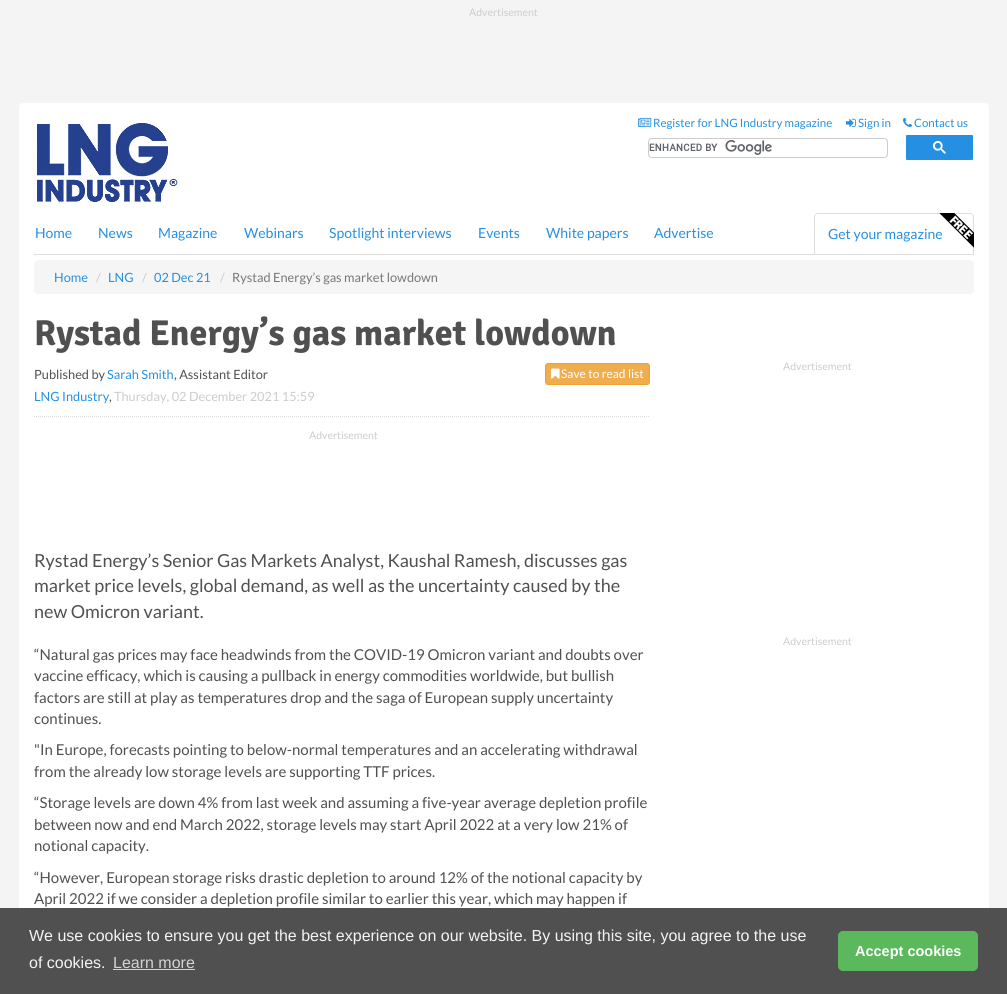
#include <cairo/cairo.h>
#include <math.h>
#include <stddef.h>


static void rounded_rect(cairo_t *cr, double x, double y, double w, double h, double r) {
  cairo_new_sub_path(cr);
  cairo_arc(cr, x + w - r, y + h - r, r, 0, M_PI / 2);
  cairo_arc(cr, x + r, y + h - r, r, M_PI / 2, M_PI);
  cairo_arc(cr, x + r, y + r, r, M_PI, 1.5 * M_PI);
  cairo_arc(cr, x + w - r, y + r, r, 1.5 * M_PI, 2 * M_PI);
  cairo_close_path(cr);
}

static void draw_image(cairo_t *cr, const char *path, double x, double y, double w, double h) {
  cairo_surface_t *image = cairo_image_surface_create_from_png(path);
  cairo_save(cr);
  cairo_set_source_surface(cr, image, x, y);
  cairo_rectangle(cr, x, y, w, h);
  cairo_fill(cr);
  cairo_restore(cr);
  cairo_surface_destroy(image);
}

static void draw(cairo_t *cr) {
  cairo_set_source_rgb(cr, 244 / 255.0, 244 / 255.0, 244 / 255.0);
  cairo_paint(cr);
  cairo_set_source_rgb(cr, 1, 1, 1);
  rounded_rect(cr, 19, 103, 970, 39, 4);
  cairo_fill(cr);
  draw_image(cr, "images/1.png", 638, 117, 14, 10);
  draw_image(cr, "images/2.png", 846, 118, 10, 9);
  draw_image(cr, "images/3.png", 903, 117, 10, 10);
  cairo_rectangle(cr, 19, 139, 970, 74);
  cairo_fill(cr);
  draw_image(cr, "images/4.png", 37, 123, 141, 79);
  draw_image(cr, "images/5.png", 649, 140, 123, 15);
  rounded_rect(cr, 648.5, 138.5, 239, 19, 3.5);
  cairo_set_source_rgb(cr, 204 / 255.0, 204 / 255.0, 204 / 255.0);
  cairo_set_line_width(cr, 1);
  cairo_stroke(cr);
  cairo_set_source_rgb(cr, 37 / 255.0, 144 / 255.0, 225 / 255.0);
  rounded_rect(cr, 905.5, 134.5, 68, 26, 1.5);
  cairo_fill_preserve(cr);
  cairo_set_source_rgb(cr, 1, 1, 1);
  cairo_stroke(cr);
  draw_image(cr, "images/6.png", 933, 141, 13, 13);
  cairo_rectangle(cr, 19, 213, 970, 101);
  cairo_fill(cr);
  cairo_set_source_rgb(cr, 221 / 255.0, 221 / 255.0, 221 / 255.0);
  cairo_rectangle(cr, 34, 254, 940, 1);
  cairo_fill(cr);
  cairo_set_fill_rule(cr, CAIRO_FILL_RULE_EVEN_ODD);
  cairo_new_path(cr);
  cairo_move_to(cr, 818, 213);
  cairo_line_to(cr, 970, 213);
  cairo_curve_to(cr, 972, 213, 974, 215, 974, 217);
  cairo_line_to(cr, 974, 254);
  cairo_line_to(cr, 814, 254);
  cairo_line_to(cr, 814, 217);
  cairo_curve_to(cr, 814, 215, 816, 213, 818, 213);
  cairo_close_path(cr);
  cairo_move_to(cr, 818, 214);
  cairo_line_to(cr, 970, 214);
  cairo_curve_to(cr, 972, 214, 973, 215, 973, 217);
  cairo_line_to(cr, 973, 254);
  cairo_line_to(cr, 815, 254);
  cairo_line_to(cr, 815, 217);
  cairo_curve_to(cr, 815, 215, 816, 214, 818, 214);
  cairo_close_path(cr);
  cairo_fill(cr);
  cairo_set_source_rgb(cr, 245 / 255.0, 245 / 255.0, 245 / 255.0);
  rounded_rect(cr, 34, 260, 940, 34, 4);
  cairo_fill(cr);
  cairo_set_source_rgb(cr, 1, 1, 1);
  rounded_rect(cr, 19, 310, 970, 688, 4);
  cairo_fill(cr);
  cairo_set_source_rgb(cr, 240 / 255.0, 173 / 255.0, 78 / 255.0);
  rounded_rect(cr, 545.5, 363.5, 104, 21, 2.5);
  cairo_fill_preserve(cr);
  cairo_set_source_rgb(cr, 238 / 255.0, 162 / 255.0, 54 / 255.0);
  cairo_stroke(cr);
  draw_image(cr, "images/8.png", 551, 368, 9, 11);
  cairo_new_path(cr);
  cairo_move_to(cr, 34, 416.5);
  cairo_line_to(cr, 650, 416.5);
  cairo_set_source_rgb(cr, 221 / 255.0, 221 / 255.0, 221 / 255.0);
  cairo_set_dash(cr, (double[]){1, 1}, 2, 0);
  cairo_stroke(cr);
  cairo_set_source_rgb(cr, 80 / 255.0, 80 / 255.0, 80 / 255.0);
  cairo_rectangle(cr, 0, 908, 1007, 86);
  cairo_fill(cr);
  cairo_set_source_rgb(cr, 211 / 255.0, 211 / 255.0, 211 / 255.0);
  cairo_rectangle(cr, 113, 969, 82, 1);
  cairo_fill(cr);
  cairo_set_source_rgb(cr, 92 / 255.0, 184 / 255.0, 92 / 255.0);
  rounded_rect(cr, 838, 931, 140, 40, 5);
  cairo_fill(cr);
  cairo_select_font_face(cr, "Lato", CAIRO_FONT_SLANT_NORMAL, CAIRO_FONT_WEIGHT_NORMAL);
  cairo_set_font_size(cr, 10.5);
  cairo_set_source_rgb(cr, 204 / 255.0, 204 / 255.0, 204 / 255.0);
  cairo_move_to(cr, 469, 16);
  cairo_show_text(cr, "Advertisement");
  cairo_set_font_size(cr, 11.5);
  cairo_set_source_rgb(cr, 37 / 255.0, 144 / 255.0, 225 / 255.0);
  cairo_move_to(cr, 653, 127);
  cairo_show_text(cr, "Register for LNG Industry magazine");
  cairo_move_to(cr, 858, 127);
  cairo_show_text(cr, "Sign in");
  cairo_move_to(cr, 914, 127);
  cairo_show_text(cr, "Contact us");
  cairo_set_font_size(cr, 14);
  cairo_move_to(cr, 35, 238);
  cairo_show_text(cr, "Home");
  cairo_move_to(cr, 98, 238);
  cairo_show_text(cr, "News");
  cairo_move_to(cr, 158, 238);
  cairo_show_text(cr, "Magazine");
  cairo_move_to(cr, 244, 238);
  cairo_show_text(cr, "Webinars");
  cairo_move_to(cr, 329, 238);
  cairo_show_text(cr, "Spotlight interviews");
  cairo_move_to(cr, 478, 238);
  cairo_show_text(cr, "Events");
  cairo_move_to(cr, 546, 238);
  cairo_show_text(cr, "White papers");
  cairo_move_to(cr, 654, 238);
  cairo_show_text(cr, "Advertise");
  cairo_move_to(cr, 828, 239);
  cairo_show_text(cr, "Get your magazine");
  draw_image(cr, "images/7.png", 939, 213, 35, 35);
  cairo_set_font_size(cr, 12.75);
  cairo_move_to(cr, 54, 282);
  cairo_show_text(cr, "Home");
  cairo_set_source_rgb(cr, 204 / 255.0, 204 / 255.0, 204 / 255.0);
  cairo_move_to(cr, 96, 282);
  cairo_show_text(cr, "/");
  cairo_set_source_rgb(cr, 37 / 255.0, 144 / 255.0, 225 / 255.0);
  cairo_move_to(cr, 108, 282);
  cairo_show_text(cr, "LNG");
  cairo_set_source_rgb(cr, 204 / 255.0, 204 / 255.0, 204 / 255.0);
  cairo_move_to(cr, 142, 282);
  cairo_show_text(cr, "/");
  cairo_set_source_rgb(cr, 37 / 255.0, 144 / 255.0, 225 / 255.0);
  cairo_move_to(cr, 154, 282);
  cairo_show_text(cr, "02 Dec 21");
  cairo_set_source_rgb(cr, 204 / 255.0, 204 / 255.0, 204 / 255.0);
  cairo_move_to(cr, 220, 282);
  cairo_show_text(cr, "/");
  cairo_set_source_rgb(cr, 119 / 255.0, 119 / 255.0, 119 / 255.0);
  cairo_move_to(cr, 232, 282);
  cairo_show_text(cr, "Rystad Energy’s gas market lowdown");
  cairo_select_font_face(cr, "Signika", CAIRO_FONT_SLANT_NORMAL, CAIRO_FONT_WEIGHT_BOLD);
  cairo_set_font_size(cr, 36);
  cairo_set_source_rgb(cr, 80 / 255.0, 80 / 255.0, 80 / 255.0);
  cairo_move_to(cr, 34, 345);
  cairo_show_text(cr, "Rystad Energy’s gas market lowdown");
  cairo_select_font_face(cr, "Lato", CAIRO_FONT_SLANT_NORMAL, CAIRO_FONT_WEIGHT_NORMAL);
  cairo_set_font_size(cr, 12.75);
  cairo_move_to(cr, 34, 379);
  cairo_show_text(cr, "Published by");
  cairo_set_source_rgb(cr, 37 / 255.0, 144 / 255.0, 225 / 255.0);
  cairo_move_to(cr, 107, 379);
  cairo_show_text(cr, "Sarah Smith");
  cairo_set_source_rgb(cr, 80 / 255.0, 80 / 255.0, 80 / 255.0);
  cairo_move_to(cr, 174, 379);
  cairo_show_text(cr, ", Assistant Editor");
  cairo_set_font_size(cr, 12);
  cairo_set_source_rgb(cr, 1, 1, 1);
  cairo_move_to(cr, 561, 378);
  cairo_show_text(cr, "Save to read list");
  cairo_set_font_size(cr, 12.75);
  cairo_set_source_rgb(cr, 37 / 255.0, 144 / 255.0, 225 / 255.0);
  cairo_move_to(cr, 34, 401);
  cairo_show_text(cr, "LNG Industry");
  cairo_set_source_rgb(cr, 80 / 255.0, 80 / 255.0, 80 / 255.0);
  cairo_move_to(cr, 109, 401);
  cairo_show_text(cr, ",");
  cairo_set_source_rgb(cr, 204 / 255.0, 204 / 255.0, 204 / 255.0);
  cairo_move_to(cr, 114, 401);
  cairo_show_text(cr, "Thursday, 02 December 2021 15:59");
  cairo_set_font_size(cr, 10.5);
  cairo_move_to(cr, 309, 439);
  cairo_show_text(cr, "Advertisement");
  cairo_set_font_size(cr, 18);
  cairo_set_source_rgb(cr, 80 / 255.0, 80 / 255.0, 80 / 255.0);
  cairo_move_to(cr, 34, 567);
  cairo_show_text(cr, "Rystad Energy’s Senior Gas Markets Analyst, Kaushal Ramesh, discusses gas");
  cairo_move_to(cr, 34, 592);
  cairo_show_text(cr, "market price levels, global demand, as well as the uncertainty caused by the");
  cairo_move_to(cr, 34, 618);
  cairo_show_text(cr, "new Omicron variant.");
  cairo_set_font_size(cr, 15);
  cairo_move_to(cr, 34, 660);
  cairo_show_text(cr, "“Natural gas prices may face headwinds from the COVID-19 Omicron variant and doubts over");
  cairo_move_to(cr, 34, 681);
  cairo_show_text(cr, "vaccine efficacy, which is causing a pullback in energy commodities worldwide, but bullish");
  cairo_move_to(cr, 34, 703);
  cairo_show_text(cr, "factors are still at play as temperatures drop and the saga of European supply uncertainty");
  cairo_move_to(cr, 34, 724);
  cairo_show_text(cr, "continues.");
  cairo_move_to(cr, 34, 755);
  cairo_show_text(cr, "\"In Europe, forecasts pointing to below-normal temperatures and an accelerating withdrawal");
  cairo_move_to(cr, 34, 777);
  cairo_show_text(cr, "from the already low storage levels are supporting TTF prices.");
  cairo_move_to(cr, 34, 808);
  cairo_show_text(cr, "“Storage levels are down 4% from last week and assuming a five-year average depletion profile");
  cairo_move_to(cr, 34, 830);
  cairo_show_text(cr, "between now and end March 2022, storage levels may start April 2022 at a very low 21% of");
  cairo_move_to(cr, 34, 851);
  cairo_show_text(cr, "notional capacity.");
  cairo_move_to(cr, 34, 883);
  cairo_show_text(cr, "“However, European storage risks drastic depletion to around 12% of the notional capacity by");
  cairo_move_to(cr, 34, 904);
  cairo_show_text(cr, "April 2022 if we consider a depletion profile similar to earlier this year, which may happen if");
  cairo_set_font_size(cr, 10.5);
  cairo_set_source_rgb(cr, 204 / 255.0, 204 / 255.0, 204 / 255.0);
  cairo_move_to(cr, 783, 370);
  cairo_show_text(cr, "Advertisement");
  cairo_move_to(cr, 783, 645);
  cairo_show_text(cr, "Advertisement");
  cairo_select_font_face(cr, "Liberation Sans", CAIRO_FONT_SLANT_NORMAL, CAIRO_FONT_WEIGHT_NORMAL);
  cairo_set_font_size(cr, 16);
  cairo_set_source_rgb(cr, 244 / 255.0, 244 / 255.0, 244 / 255.0);
  cairo_move_to(cr, 29, 941);
  cairo_show_text(cr, "We use cookies to ensure you get the best experience on our website. By using this site, you agree to the use");
  cairo_move_to(cr, 29, 968);
  cairo_show_text(cr, "of cookies.");
  cairo_set_source_rgb(cr, 211 / 255.0, 211 / 255.0, 211 / 255.0);
  cairo_move_to(cr, 113, 968);
  cairo_show_text(cr, "Learn more");
  cairo_select_font_face(cr, "Liberation Sans", CAIRO_FONT_SLANT_NORMAL, CAIRO_FONT_WEIGHT_BOLD);
  cairo_set_font_size(cr, 14.5);
  cairo_set_source_rgb(cr, 1, 1, 1);
  cairo_move_to(cr, 855, 956);
  cairo_show_text(cr, "Accept cookies");
}

int main(void) {
  cairo_surface_t *surface = cairo_image_surface_create(CAIRO_FORMAT_RGB24, 1007, 994);
  cairo_t *cr = cairo_create(surface);
  cairo_font_options_t *options = cairo_font_options_create();
  cairo_font_options_set_hint_metrics(options, CAIRO_HINT_METRICS_OFF);
  cairo_font_options_set_hint_style(options, CAIRO_HINT_STYLE_NONE);
  cairo_set_font_options(cr, options);
  cairo_set_miter_limit(cr, 4);
  draw(cr);
  cairo_surface_write_to_png(surface, "out.png");
  cairo_font_options_destroy(options);
  cairo_destroy(cr);
  cairo_surface_destroy(surface);
  return 0;
}
